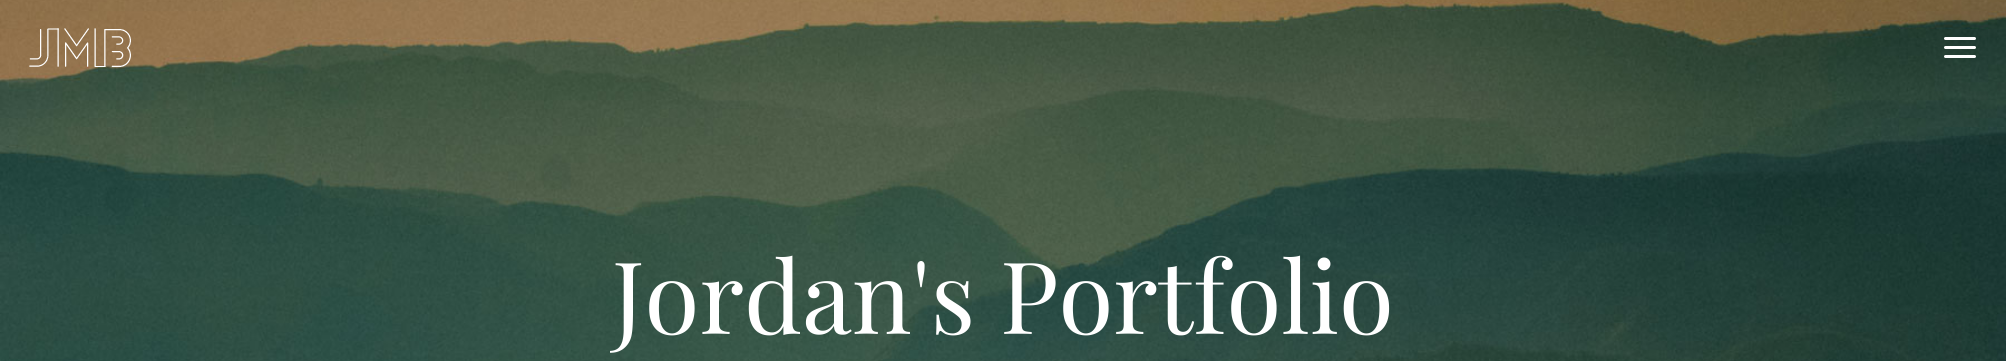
#include <cairo/cairo.h>
#include <math.h>
#include <stddef.h>


static void rounded_rect(cairo_t *cr, double x, double y, double w, double h, double r) {
  cairo_new_sub_path(cr);
  cairo_arc(cr, x + w - r, y + h - r, r, 0, M_PI / 2);
  cairo_arc(cr, x + r, y + h - r, r, M_PI / 2, M_PI);
  cairo_arc(cr, x + r, y + r, r, M_PI, 1.5 * M_PI);
  cairo_arc(cr, x + w - r, y + r, r, 1.5 * M_PI, 2 * M_PI);
  cairo_close_path(cr);
}

static void draw_image(cairo_t *cr, const char *path, double x, double y, double w, double h) {
  cairo_surface_t *image = cairo_image_surface_create_from_png(path);
  cairo_save(cr);
  cairo_set_source_surface(cr, image, x, y);
  cairo_rectangle(cr, x, y, w, h);
  cairo_fill(cr);
  cairo_restore(cr);
  cairo_surface_destroy(image);
}

static void draw(cairo_t *cr) {
  cairo_set_source_rgb(cr, 1, 1, 1);
  cairo_paint(cr);
  draw_image(cr, "images/2.png", 0, 0, 2006, 361);
  draw_image(cr, "images/1.png", 29, 28, 102, 39);
  cairo_set_source_rgb(cr, 1, 1, 1);
  rounded_rect(cr, 1944, 37, 32, 3, 1.5);
  cairo_fill(cr);
  rounded_rect(cr, 1944, 55, 32, 3, 1.5);
  cairo_fill(cr);
  rounded_rect(cr, 1944, 46, 32, 3, 1.5);
  cairo_fill(cr);
  cairo_select_font_face(cr, "Playfair Display", CAIRO_FONT_SLANT_NORMAL, CAIRO_FONT_WEIGHT_NORMAL);
  cairo_set_font_size(cr, 100);
  cairo_move_to(cr, 612, 334);
  cairo_show_text(cr, "Jordan's Portfolio");
}

int main(void) {
  cairo_surface_t *surface = cairo_image_surface_create(CAIRO_FORMAT_RGB24, 2006, 361);
  cairo_t *cr = cairo_create(surface);
  cairo_font_options_t *options = cairo_font_options_create();
  cairo_font_options_set_hint_metrics(options, CAIRO_HINT_METRICS_OFF);
  cairo_font_options_set_hint_style(options, CAIRO_HINT_STYLE_NONE);
  cairo_set_font_options(cr, options);
  cairo_set_miter_limit(cr, 4);
  draw(cr);
  cairo_surface_write_to_png(surface, "out.png");
  cairo_font_options_destroy(options);
  cairo_destroy(cr);
  cairo_surface_destroy(surface);
  return 0;
}
